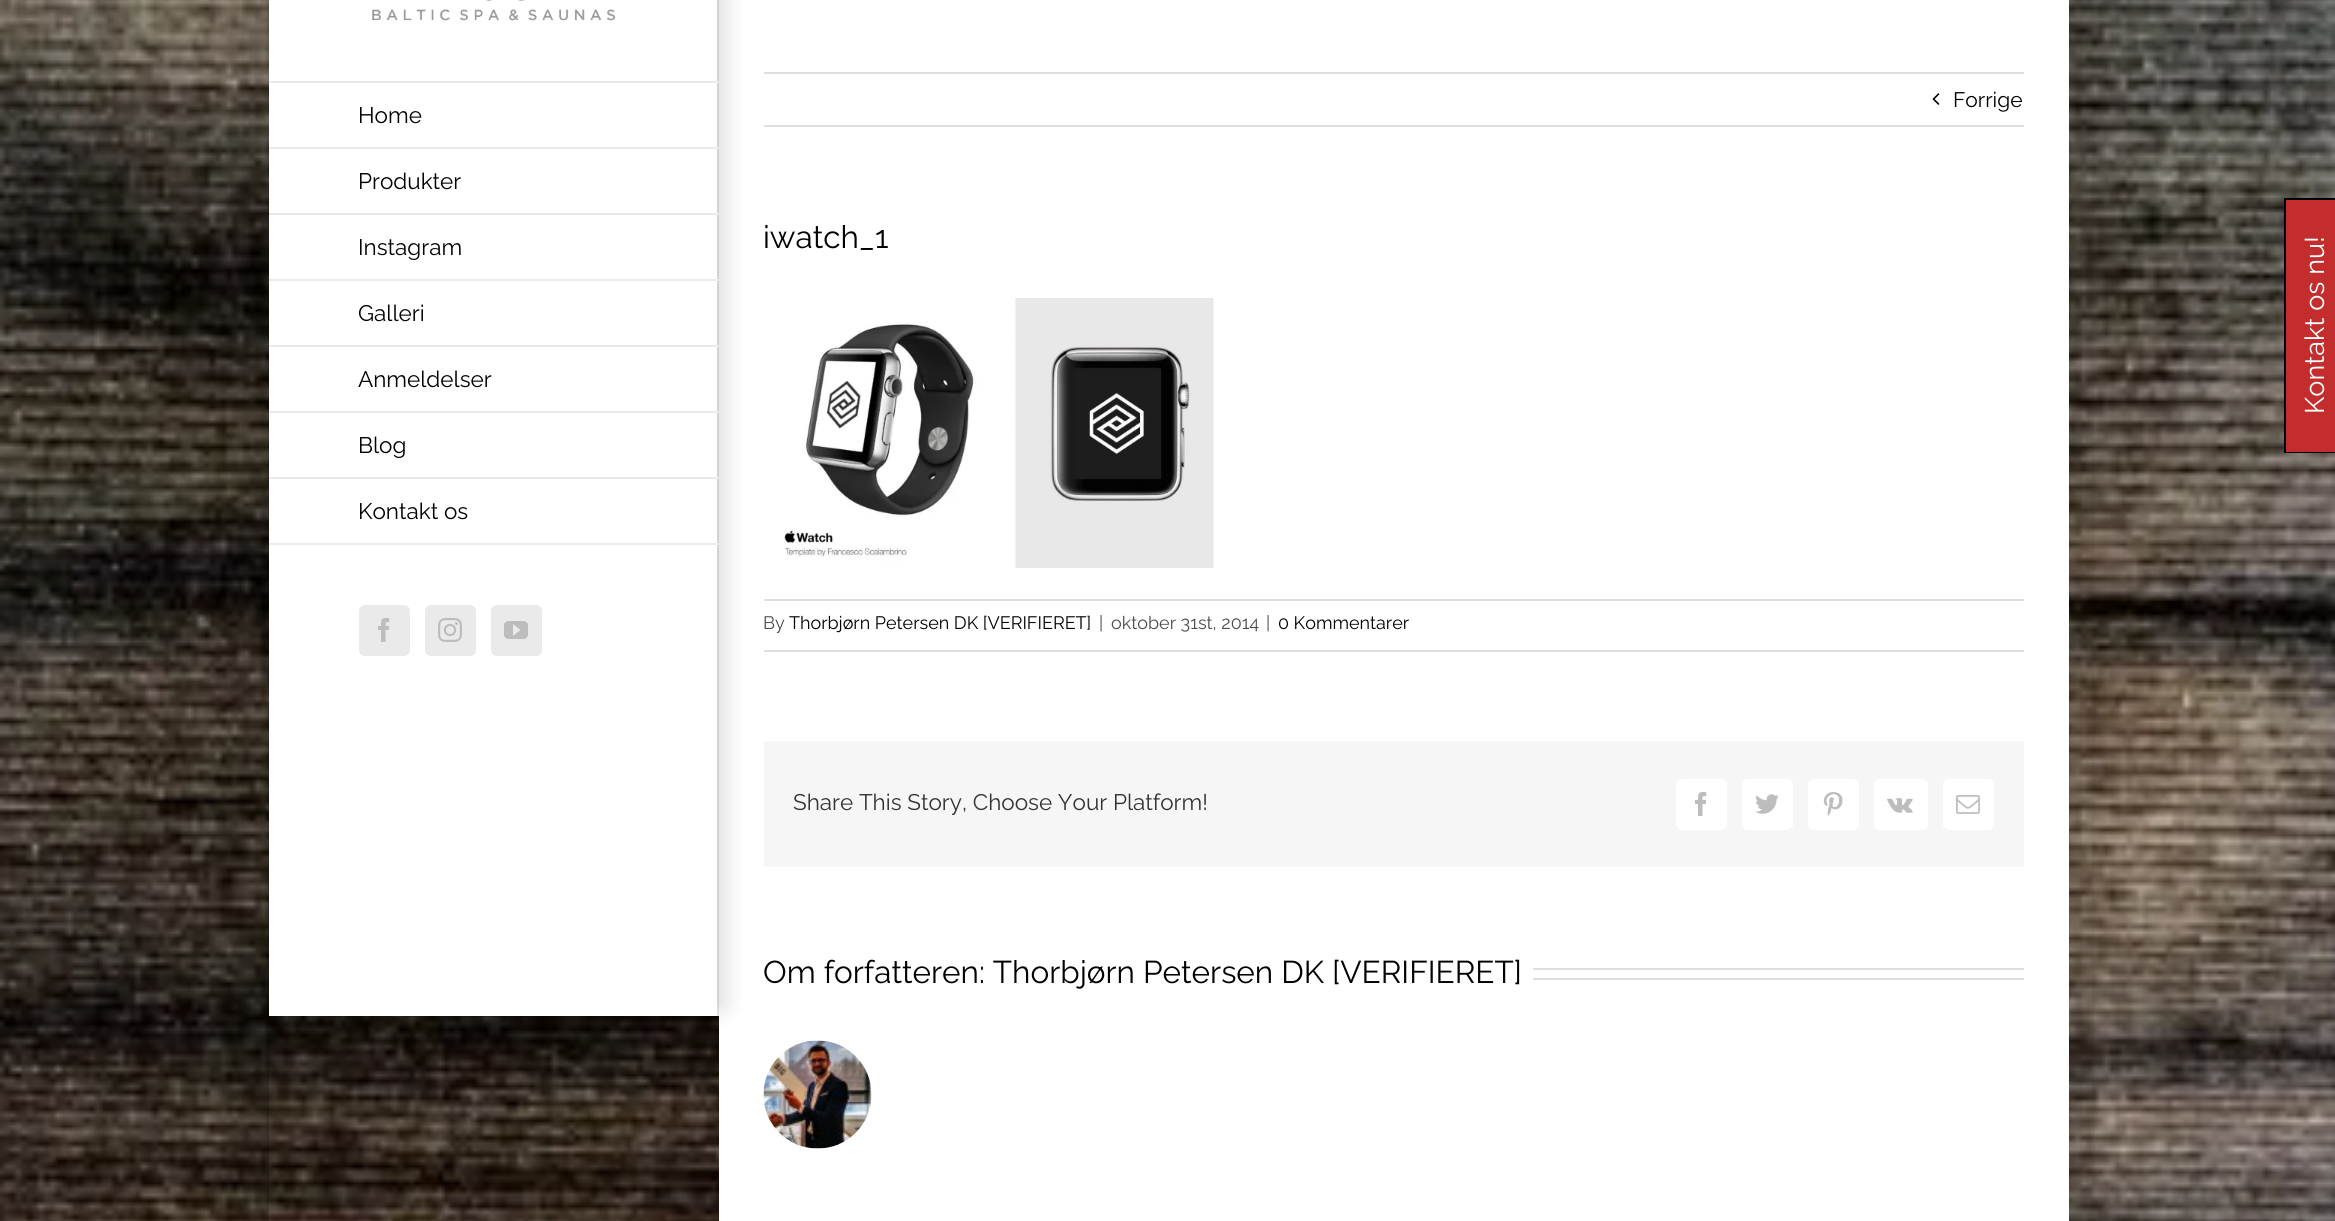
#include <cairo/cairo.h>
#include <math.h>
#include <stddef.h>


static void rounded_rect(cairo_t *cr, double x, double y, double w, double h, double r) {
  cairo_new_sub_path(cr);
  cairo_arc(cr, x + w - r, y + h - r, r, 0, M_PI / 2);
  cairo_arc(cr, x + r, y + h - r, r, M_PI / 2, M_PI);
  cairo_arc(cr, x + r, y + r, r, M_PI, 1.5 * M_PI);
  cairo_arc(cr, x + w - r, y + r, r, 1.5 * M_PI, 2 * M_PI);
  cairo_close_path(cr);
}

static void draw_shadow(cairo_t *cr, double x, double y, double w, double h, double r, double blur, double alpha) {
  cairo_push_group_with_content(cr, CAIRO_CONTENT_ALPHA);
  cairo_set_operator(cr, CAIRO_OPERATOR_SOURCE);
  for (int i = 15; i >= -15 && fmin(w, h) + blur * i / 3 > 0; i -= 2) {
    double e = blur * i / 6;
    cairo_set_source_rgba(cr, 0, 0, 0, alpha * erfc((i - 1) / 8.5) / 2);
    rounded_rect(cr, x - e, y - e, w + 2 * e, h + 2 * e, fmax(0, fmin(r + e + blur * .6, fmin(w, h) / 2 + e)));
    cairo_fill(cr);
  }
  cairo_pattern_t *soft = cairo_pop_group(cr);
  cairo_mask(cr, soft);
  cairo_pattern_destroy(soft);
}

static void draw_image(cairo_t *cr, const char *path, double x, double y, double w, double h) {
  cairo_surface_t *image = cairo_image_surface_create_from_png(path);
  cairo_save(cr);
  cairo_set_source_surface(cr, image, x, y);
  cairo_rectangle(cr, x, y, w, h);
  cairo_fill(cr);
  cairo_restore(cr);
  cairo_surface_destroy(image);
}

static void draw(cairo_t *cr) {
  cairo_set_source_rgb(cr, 1, 1, 1);
  cairo_paint(cr);
  draw_image(cr, "images/1.png", 0, 0, 2335, 1221);
  cairo_save(cr);
  cairo_set_fill_rule(cr, CAIRO_FILL_RULE_EVEN_ODD);
  cairo_new_path(cr);
  cairo_move_to(cr, 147, 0);
  cairo_line_to(cr, 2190, 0);
  cairo_line_to(cr, 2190, 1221);
  cairo_line_to(cr, 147, 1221);
  cairo_close_path(cr);
  cairo_move_to(cr, 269, -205);
  cairo_line_to(cr, 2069, -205);
  cairo_line_to(cr, 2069, 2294);
  cairo_line_to(cr, 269, 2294);
  cairo_close_path(cr);
  cairo_clip(cr);
  cairo_set_source_rgb(cr, 0, 0, 0);
  draw_shadow(cr, 261, -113, 1815, 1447, 0, 37.5, 0.35);
  cairo_restore(cr);
  cairo_set_source_rgb(cr, 1, 1, 1);
  cairo_rectangle(cr, 269, 0, 448, 1016);
  cairo_fill(cr);
  cairo_set_source_rgb(cr, 234 / 255.0, 234 / 255.0, 234 / 255.0);
  cairo_rectangle(cr, 717, 0, 2, 1016);
  cairo_fill(cr);
  cairo_set_source_rgb(cr, 1, 1, 1);
  cairo_rectangle(cr, 719, 0, 1350, 1221);
  cairo_fill(cr);
  cairo_save(cr);
  cairo_set_fill_rule(cr, CAIRO_FILL_RULE_EVEN_ODD);
  cairo_new_path(cr);
  cairo_move_to(cr, 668, 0);
  cairo_line_to(cr, 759, 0);
  cairo_line_to(cr, 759, 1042);
  cairo_line_to(cr, 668, 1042);
  cairo_close_path(cr);
  cairo_move_to(cr, 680, -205);
  cairo_line_to(cr, 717, -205);
  cairo_line_to(cr, 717, 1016);
  cairo_line_to(cr, 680, 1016);
  cairo_close_path(cr);
  cairo_clip(cr);
  cairo_set_source_rgb(cr, 0, 0, 0);
  draw_shadow(cr, 702, -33, 23, 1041, 0, 11, 0.14);
  cairo_restore(cr);
  draw_image(cr, "images/2.png", 372, 0, 244, 21);
  cairo_set_source_rgb(cr, 234 / 255.0, 234 / 255.0, 234 / 255.0);
  cairo_rectangle(cr, 269, 81, 450, 2);
  cairo_fill(cr);
  cairo_rectangle(cr, 269, 147, 450, 2);
  cairo_fill(cr);
  cairo_rectangle(cr, 269, 213, 450, 2);
  cairo_fill(cr);
  cairo_rectangle(cr, 269, 279, 450, 2);
  cairo_fill(cr);
  cairo_rectangle(cr, 269, 345, 450, 2);
  cairo_fill(cr);
  cairo_rectangle(cr, 269, 411, 450, 2);
  cairo_fill(cr);
  cairo_rectangle(cr, 269, 477, 450, 2);
  cairo_fill(cr);
  cairo_rectangle(cr, 269, 543, 450, 2);
  cairo_fill(cr);
  rounded_rect(cr, 360, 606, 49, 49, 5);
  cairo_fill_preserve(cr);
  cairo_stroke(cr);
  draw_image(cr, "images/3.png", 378, 618, 12, 24);
  rounded_rect(cr, 426, 606, 49, 49, 5);
  cairo_fill_preserve(cr);
  cairo_stroke(cr);
  draw_image(cr, "images/4.png", 438, 618, 24, 24);
  rounded_rect(cr, 492, 606, 49, 49, 5);
  cairo_fill_preserve(cr);
  cairo_stroke(cr);
  draw_image(cr, "images/5.png", 504, 621, 24, 18);
  cairo_set_source_rgb(cr, 224 / 255.0, 222 / 255.0, 222 / 255.0);
  cairo_rectangle(cr, 764, 72, 1260, 2);
  cairo_fill(cr);
  cairo_rectangle(cr, 764, 125, 1260, 2);
  cairo_fill(cr);
  draw_image(cr, "images/6.png", 1932, 93, 8, 12);
  draw_image(cr, "images/7.png", 784, 298, 430, 270);
  cairo_rectangle(cr, 764, 599, 1260, 2);
  cairo_fill(cr);
  cairo_rectangle(cr, 764, 650, 1260, 2);
  cairo_fill(cr);
  cairo_set_source_rgb(cr, 246 / 255.0, 246 / 255.0, 246 / 255.0);
  cairo_rectangle(cr, 764, 741, 1260, 126);
  cairo_fill(cr);
  cairo_set_source_rgb(cr, 1, 1, 1);
  rounded_rect(cr, 1676, 779, 51, 51, 6);
  cairo_fill(cr);
  draw_image(cr, "images/8.png", 1695, 792, 12, 24);
  rounded_rect(cr, 1742, 779, 51, 51, 6);
  cairo_fill(cr);
  draw_image(cr, "images/9.png", 1755, 794, 24, 20);
  rounded_rect(cr, 1808, 779, 51, 51, 6);
  cairo_fill(cr);
  draw_image(cr, "images/10.png", 1823, 792, 20, 24);
  rounded_rect(cr, 1874, 779, 54, 51, 6);
  cairo_fill(cr);
  draw_image(cr, "images/11.png", 1887, 798, 26, 15);
  rounded_rect(cr, 1943, 779, 51, 51, 6);
  cairo_fill(cr);
  draw_image(cr, "images/12.png", 1956, 795, 24, 19);
  cairo_set_source_rgb(cr, 224 / 255.0, 222 / 255.0, 222 / 255.0);
  cairo_rectangle(cr, 1533, 968, 491, 2);
  cairo_fill(cr);
  cairo_rectangle(cr, 1533, 978, 491, 2);
  cairo_fill(cr);
  draw_image(cr, "images/13.png", 763, 1040, 109, 109);
  cairo_set_source_rgb(cr, 196 / 255.0, 45 / 255.0, 45 / 255.0);
  cairo_rectangle(cr, 2286, 200, 49, 252);
  cairo_fill(cr);
  cairo_set_source_rgb(cr, 0, 0, 0);
  cairo_rectangle(cr, 2284, 198, 2, 255);
  cairo_fill(cr);
  cairo_rectangle(cr, 2284, 198, 51, 2);
  cairo_fill(cr);
  cairo_rectangle(cr, 2284, 452, 51, 1);
  cairo_fill(cr);
  cairo_select_font_face(cr, "Raleway Thin", CAIRO_FONT_SLANT_NORMAL, CAIRO_FONT_WEIGHT_NORMAL);
  cairo_set_font_size(cr, 22.5);
  cairo_move_to(cr, 358, 123);
  cairo_show_text(cr, "Home");
  cairo_move_to(cr, 358, 189);
  cairo_show_text(cr, "Produkter");
  cairo_move_to(cr, 358, 255);
  cairo_show_text(cr, "Instagram");
  cairo_move_to(cr, 358, 321);
  cairo_show_text(cr, "Galleri");
  cairo_move_to(cr, 358, 387);
  cairo_show_text(cr, "Anmeldelser");
  cairo_move_to(cr, 358, 453);
  cairo_show_text(cr, "Blog");
  cairo_move_to(cr, 358, 519);
  cairo_show_text(cr, "Kontakt os");
  cairo_set_font_size(cr, 21);
  cairo_move_to(cr, 1953, 107);
  cairo_show_text(cr, "Forrige");
  cairo_set_font_size(cr, 31.5);
  cairo_move_to(cr, 763, 248);
  cairo_show_text(cr, "iwatch_1");
  cairo_set_font_size(cr, 18);
  cairo_set_source_rgb(cr, 76 / 255.0, 76 / 255.0, 76 / 255.0);
  cairo_move_to(cr, 763, 629);
  cairo_show_text(cr, "By");
  cairo_set_source_rgb(cr, 0, 0, 0);
  cairo_move_to(cr, 789, 629);
  cairo_show_text(cr, "Thorbjørn Petersen DK [VERIFIERET]");
  cairo_set_source_rgb(cr, 76 / 255.0, 76 / 255.0, 76 / 255.0);
  cairo_move_to(cr, 1099, 629);
  cairo_show_text(cr, "|");
  cairo_move_to(cr, 1111, 629);
  cairo_show_text(cr, "oktober 31st, 2014");
  cairo_move_to(cr, 1266, 629);
  cairo_show_text(cr, "|");
  cairo_set_source_rgb(cr, 0, 0, 0);
  cairo_move_to(cr, 1278, 629);
  cairo_show_text(cr, "0 Kommentarer");
  cairo_set_font_size(cr, 22.5);
  cairo_set_source_rgb(cr, 51 / 255.0, 51 / 255.0, 51 / 255.0);
  cairo_move_to(cr, 793, 810);
  cairo_show_text(cr, "Share This Story, Choose Your Platform!");
  cairo_set_font_size(cr, 31.5);
  cairo_set_source_rgb(cr, 0, 0, 0);
  cairo_move_to(cr, 763, 983);
  cairo_show_text(cr, "Om forfatteren: Thorbjørn Petersen DK [VERIFIERET]");
  cairo_set_font_size(cr, 27);
  cairo_set_source_rgb(cr, 1, 1, 1);
  cairo_save(cr);
  cairo_translate(cr, 2324, 414);
  cairo_rotate(cr, -90 * M_PI / 180);
  cairo_move_to(cr, 0, 0);
  cairo_show_text(cr, "Kontakt os nu!");
  cairo_restore(cr);
}

int main(void) {
  cairo_surface_t *surface = cairo_image_surface_create(CAIRO_FORMAT_RGB24, 2335, 1221);
  cairo_t *cr = cairo_create(surface);
  cairo_font_options_t *options = cairo_font_options_create();
  cairo_font_options_set_hint_metrics(options, CAIRO_HINT_METRICS_OFF);
  cairo_font_options_set_hint_style(options, CAIRO_HINT_STYLE_NONE);
  cairo_set_font_options(cr, options);
  cairo_set_miter_limit(cr, 4);
  draw(cr);
  cairo_surface_write_to_png(surface, "out.png");
  cairo_font_options_destroy(options);
  cairo_destroy(cr);
  cairo_surface_destroy(surface);
  return 0;
}
